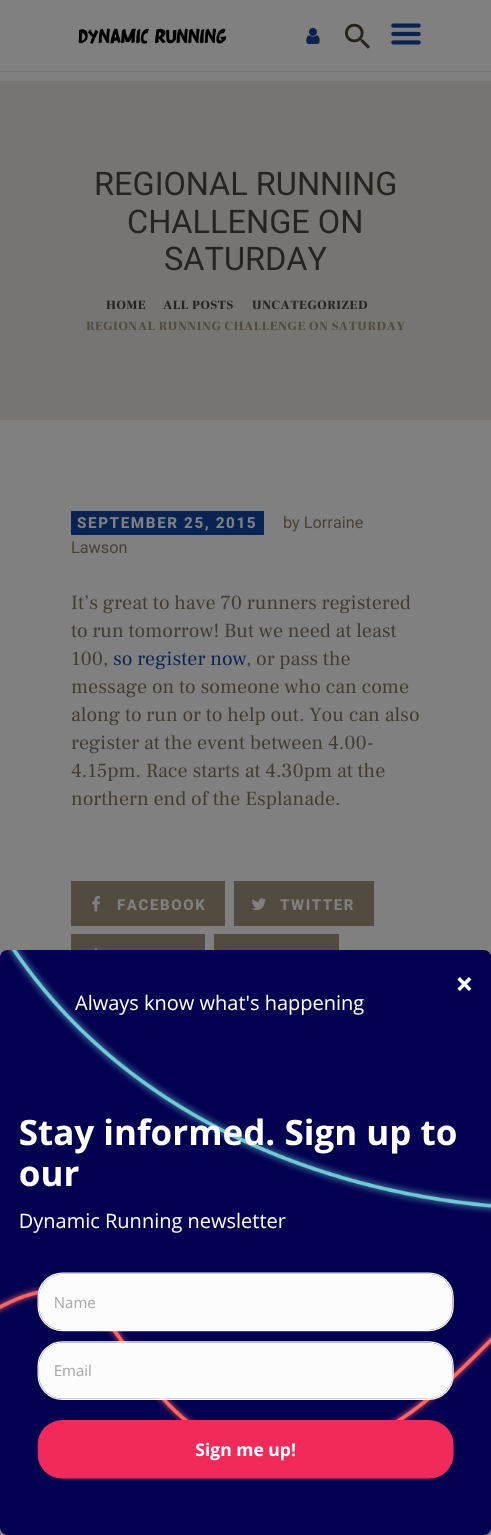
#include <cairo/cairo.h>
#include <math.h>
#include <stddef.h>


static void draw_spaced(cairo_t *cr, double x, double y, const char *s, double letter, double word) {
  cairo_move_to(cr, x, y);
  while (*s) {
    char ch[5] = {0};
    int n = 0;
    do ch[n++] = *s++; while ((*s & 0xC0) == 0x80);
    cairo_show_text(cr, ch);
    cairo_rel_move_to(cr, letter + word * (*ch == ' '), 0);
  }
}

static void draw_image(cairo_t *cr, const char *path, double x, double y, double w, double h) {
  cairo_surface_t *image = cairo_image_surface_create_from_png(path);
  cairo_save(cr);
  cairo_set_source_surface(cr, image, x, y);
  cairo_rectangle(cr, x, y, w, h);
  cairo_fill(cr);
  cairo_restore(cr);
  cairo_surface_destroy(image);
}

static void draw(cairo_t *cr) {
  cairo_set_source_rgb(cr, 128 / 255.0, 128 / 255.0, 128 / 255.0);
  cairo_paint(cr);
  cairo_set_source_rgb(cr, 118 / 255.0, 117 / 255.0, 115 / 255.0);
  cairo_rectangle(cr, 0, 71, 491, 1);
  cairo_fill(cr);
  draw_image(cr, "images/1.png", 78, 28, 149, 16);
  draw_image(cr, "images/2.png", 306, 27, 14, 17);
  draw_image(cr, "images/3.png", 345, 23, 25, 26);
  draw_image(cr, "images/4.png", 391, 23, 30, 22);
  cairo_set_source_rgb(cr, 119 / 255.0, 117 / 255.0, 114 / 255.0);
  cairo_rectangle(cr, 0, 81, 491, 339);
  cairo_fill(cr);
  cairo_set_source_rgb(cr, 10 / 255.0, 35 / 255.0, 82 / 255.0);
  cairo_rectangle(cr, 71, 511, 193, 24);
  cairo_fill(cr);
  cairo_set_source_rgb(cr, 82 / 255.0, 75 / 255.0, 64 / 255.0);
  cairo_rectangle(cr, 71, 881, 154, 45);
  cairo_fill(cr);
  draw_image(cr, "images/5.png", 92, 896, 9, 16);
  cairo_rectangle(cr, 234, 881, 140, 45);
  cairo_fill(cr);
  draw_image(cr, "images/6.png", 252, 898, 14, 13);
  cairo_rectangle(cr, 71, 934, 134, 16);
  cairo_fill(cr);
  draw_image(cr, "images/7.png", 94, 948, 4, 2);
  cairo_rectangle(cr, 214, 934, 125, 16);
  cairo_fill(cr);
  draw_image(cr, "images/8.png", 0, 950, 491, 585);
  cairo_select_font_face(cr, "Roboto", CAIRO_FONT_SLANT_NORMAL, CAIRO_FONT_WEIGHT_NORMAL);
  cairo_set_font_size(cr, 32.5);
  cairo_set_source_rgb(cr, 39 / 255.0, 35 / 255.0, 31 / 255.0);
  cairo_move_to(cr, 94, 195);
  cairo_show_text(cr, "REGIONAL RUNNING");
  cairo_move_to(cr, 127, 233);
  cairo_show_text(cr, "CHALLENGE ON");
  cairo_move_to(cr, 164, 270);
  cairo_show_text(cr, "SATURDAY");
  cairo_select_font_face(cr, "Frank Ruhl Libre Black", CAIRO_FONT_SLANT_NORMAL, CAIRO_FONT_WEIGHT_NORMAL);
  cairo_set_font_size(cr, 12.5);
  draw_spaced(cr, 106, 309, "HOME", 0.6, 0);
  draw_spaced(cr, 163, 309, "ALL POSTS", 0.6, 0);
  draw_spaced(cr, 252, 309, "UNCATEGORIZED", 0.6, 0);
  cairo_set_source_rgb(cr, 82 / 255.0, 75 / 255.0, 64 / 255.0);
  draw_spaced(cr, 86, 330, "REGIONAL RUNNING CHALLENGE ON SATURDAY", 0.6, 0);
  cairo_select_font_face(cr, "Roboto ExtraBold", CAIRO_FONT_SLANT_NORMAL, CAIRO_FONT_WEIGHT_NORMAL);
  cairo_set_font_size(cr, 15.2);
  cairo_set_source_rgb(cr, 128 / 255.0, 128 / 255.0, 128 / 255.0);
  draw_spaced(cr, 77, 528, "SEPTEMBER 25, 2015", 1.6, 0);
  cairo_select_font_face(cr, "Roboto", CAIRO_FONT_SLANT_NORMAL, CAIRO_FONT_WEIGHT_NORMAL);
  cairo_set_font_size(cr, 16.25);
  cairo_set_source_rgb(cr, 74 / 255.0, 65 / 255.0, 53 / 255.0);
  cairo_move_to(cr, 283, 528);
  cairo_show_text(cr, "by Lorraine");
  cairo_move_to(cr, 71, 553);
  cairo_show_text(cr, "Lawson");
  cairo_select_font_face(cr, "Frank Ruhl Libre", CAIRO_FONT_SLANT_NORMAL, CAIRO_FONT_WEIGHT_NORMAL);
  cairo_set_font_size(cr, 20);
  cairo_set_source_rgb(cr, 64 / 255.0, 59 / 255.0, 51 / 255.0);
  cairo_move_to(cr, 71, 609);
  cairo_show_text(cr, "It’s great to have 70 runners registered");
  cairo_move_to(cr, 71, 637);
  cairo_show_text(cr, "to run tomorrow! But we need at least");
  cairo_move_to(cr, 71, 665);
  cairo_show_text(cr, "100,");
  cairo_set_source_rgb(cr, 10 / 255.0, 35 / 255.0, 82 / 255.0);
  cairo_move_to(cr, 113, 665);
  cairo_show_text(cr, "so register now");
  cairo_set_source_rgb(cr, 64 / 255.0, 59 / 255.0, 51 / 255.0);
  cairo_move_to(cr, 246, 665);
  cairo_show_text(cr, ", or pass the");
  cairo_move_to(cr, 71, 693);
  cairo_show_text(cr, "message on to someone who can come");
  cairo_move_to(cr, 71, 721);
  cairo_show_text(cr, "along to run or to help out. You can also");
  cairo_move_to(cr, 71, 749);
  cairo_show_text(cr, "register at the event between 4.00-");
  cairo_move_to(cr, 71, 777);
  cairo_show_text(cr, "4.15pm. Race starts at 4.30pm at the");
  cairo_move_to(cr, 71, 805);
  cairo_show_text(cr, "northern end of the Esplanade.");
  cairo_select_font_face(cr, "Roboto ExtraBold", CAIRO_FONT_SLANT_NORMAL, CAIRO_FONT_WEIGHT_NORMAL);
  cairo_set_font_size(cr, 15);
  cairo_set_source_rgb(cr, 128 / 255.0, 128 / 255.0, 128 / 255.0);
  draw_spaced(cr, 117, 910, "FACEBOOK", 1.6, 0);
  draw_spaced(cr, 280, 910, "TWITTER", 1.6, 0);
}

int main(void) {
  cairo_surface_t *surface = cairo_image_surface_create(CAIRO_FORMAT_RGB24, 491, 1535);
  cairo_t *cr = cairo_create(surface);
  cairo_font_options_t *options = cairo_font_options_create();
  cairo_font_options_set_hint_metrics(options, CAIRO_HINT_METRICS_OFF);
  cairo_font_options_set_hint_style(options, CAIRO_HINT_STYLE_NONE);
  cairo_set_font_options(cr, options);
  cairo_set_miter_limit(cr, 4);
  draw(cr);
  cairo_surface_write_to_png(surface, "out.png");
  cairo_font_options_destroy(options);
  cairo_destroy(cr);
  cairo_surface_destroy(surface);
  return 0;
}
